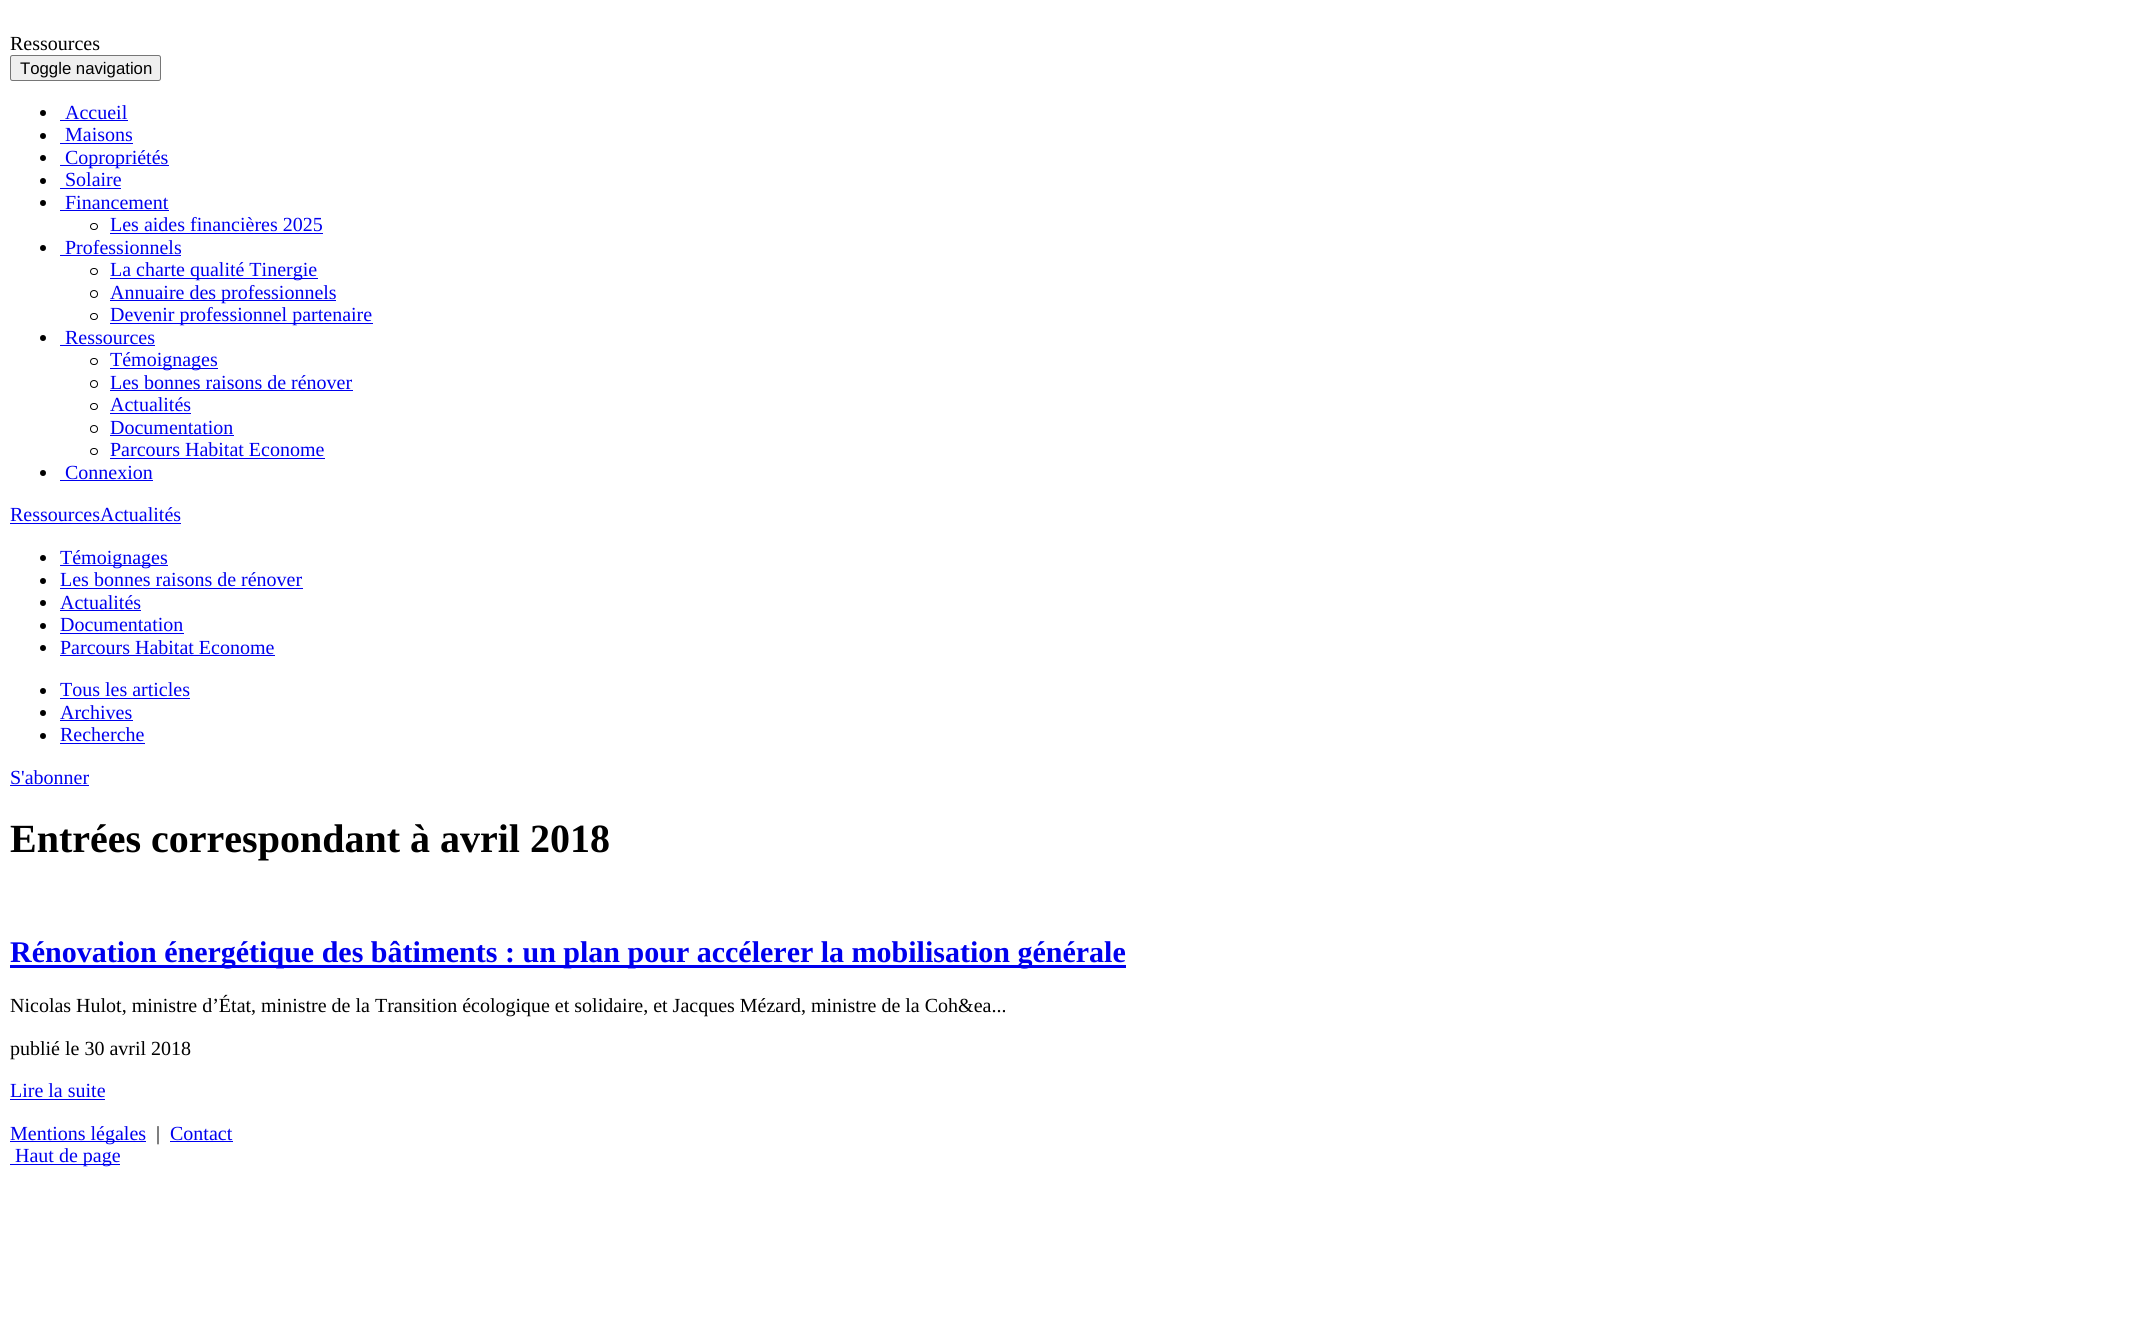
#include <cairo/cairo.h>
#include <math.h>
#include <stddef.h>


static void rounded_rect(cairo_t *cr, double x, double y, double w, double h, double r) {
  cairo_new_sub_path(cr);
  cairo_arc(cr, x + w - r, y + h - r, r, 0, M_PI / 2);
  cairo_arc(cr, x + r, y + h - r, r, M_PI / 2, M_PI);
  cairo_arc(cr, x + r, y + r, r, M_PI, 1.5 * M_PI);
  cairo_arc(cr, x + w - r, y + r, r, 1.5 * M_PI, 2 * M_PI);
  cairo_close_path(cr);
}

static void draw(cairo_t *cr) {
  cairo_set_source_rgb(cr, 1, 1, 1);
  cairo_paint(cr);
  cairo_set_source_rgb(cr, 239 / 255.0, 239 / 255.0, 239 / 255.0);
  rounded_rect(cr, 10.5, 55.5, 150, 25, 2);
  cairo_fill_preserve(cr);
  cairo_set_source_rgb(cr, 118 / 255.0, 118 / 255.0, 118 / 255.0);
  cairo_set_line_width(cr, 1);
  cairo_stroke(cr);
  cairo_set_source_rgb(cr, 0, 0, 0);
  cairo_arc(cr, 43, 113, 3, 0, 2 * M_PI);
  cairo_fill(cr);
  cairo_set_source_rgb(cr, 0, 0, 238 / 255.0);
  cairo_rectangle(cr, 60, 120, 68, 1);
  cairo_fill(cr);
  cairo_set_source_rgb(cr, 0, 0, 0);
  cairo_arc(cr, 43, 136, 3, 0, 2 * M_PI);
  cairo_fill(cr);
  cairo_set_source_rgb(cr, 0, 0, 238 / 255.0);
  cairo_rectangle(cr, 60, 143, 73, 1);
  cairo_fill(cr);
  cairo_set_source_rgb(cr, 0, 0, 0);
  cairo_arc(cr, 43, 158, 3, 0, 2 * M_PI);
  cairo_fill(cr);
  cairo_set_source_rgb(cr, 0, 0, 238 / 255.0);
  cairo_rectangle(cr, 60, 165, 109, 1);
  cairo_fill(cr);
  cairo_set_source_rgb(cr, 0, 0, 0);
  cairo_arc(cr, 43, 181, 3, 0, 2 * M_PI);
  cairo_fill(cr);
  cairo_set_source_rgb(cr, 0, 0, 238 / 255.0);
  cairo_rectangle(cr, 60, 188, 61, 1);
  cairo_fill(cr);
  cairo_set_source_rgb(cr, 0, 0, 0);
  cairo_arc(cr, 43, 203, 3, 0, 2 * M_PI);
  cairo_fill(cr);
  cairo_set_source_rgb(cr, 0, 0, 238 / 255.0);
  cairo_rectangle(cr, 60, 210, 109, 1);
  cairo_fill(cr);
  rounded_rect(cr, 90.5, 223.5, 7, 6, 3);
  cairo_set_source_rgb(cr, 0, 0, 0);
  cairo_stroke(cr);
  cairo_set_source_rgb(cr, 0, 0, 238 / 255.0);
  cairo_rectangle(cr, 110, 233, 213, 1);
  cairo_fill(cr);
  cairo_set_source_rgb(cr, 0, 0, 0);
  cairo_arc(cr, 43, 248, 3, 0, 2 * M_PI);
  cairo_fill(cr);
  cairo_set_source_rgb(cr, 0, 0, 238 / 255.0);
  cairo_rectangle(cr, 60, 255, 121, 1);
  cairo_fill(cr);
  rounded_rect(cr, 90.5, 268.5, 7, 6, 3);
  cairo_set_source_rgb(cr, 0, 0, 0);
  cairo_stroke(cr);
  cairo_set_source_rgb(cr, 0, 0, 238 / 255.0);
  cairo_rectangle(cr, 110, 278, 208, 1);
  cairo_fill(cr);
  cairo_arc(cr, 94, 294, 3.5, 0, 2 * M_PI);
  cairo_set_source_rgb(cr, 0, 0, 0);
  cairo_stroke(cr);
  cairo_set_source_rgb(cr, 0, 0, 238 / 255.0);
  cairo_rectangle(cr, 110, 300, 226, 1);
  cairo_fill(cr);
  rounded_rect(cr, 90.5, 313.5, 7, 6, 3);
  cairo_set_source_rgb(cr, 0, 0, 0);
  cairo_stroke(cr);
  cairo_set_source_rgb(cr, 0, 0, 238 / 255.0);
  cairo_rectangle(cr, 110, 323, 263, 1);
  cairo_fill(cr);
  cairo_set_source_rgb(cr, 0, 0, 0);
  cairo_arc(cr, 43, 338, 3, 0, 2 * M_PI);
  cairo_fill(cr);
  cairo_set_source_rgb(cr, 0, 0, 238 / 255.0);
  cairo_rectangle(cr, 60, 345, 95, 1);
  cairo_fill(cr);
  rounded_rect(cr, 90.5, 358.5, 7, 6, 3);
  cairo_set_source_rgb(cr, 0, 0, 0);
  cairo_stroke(cr);
  cairo_set_source_rgb(cr, 0, 0, 238 / 255.0);
  cairo_rectangle(cr, 110, 368, 108, 1);
  cairo_fill(cr);
  cairo_arc(cr, 94, 384, 3.5, 0, 2 * M_PI);
  cairo_set_source_rgb(cr, 0, 0, 0);
  cairo_stroke(cr);
  cairo_set_source_rgb(cr, 0, 0, 238 / 255.0);
  cairo_rectangle(cr, 110, 390, 243, 1);
  cairo_fill(cr);
  rounded_rect(cr, 90.5, 403.5, 7, 6, 3);
  cairo_set_source_rgb(cr, 0, 0, 0);
  cairo_stroke(cr);
  cairo_set_source_rgb(cr, 0, 0, 238 / 255.0);
  cairo_rectangle(cr, 110, 413, 81, 1);
  cairo_fill(cr);
  cairo_arc(cr, 94, 429, 3.5, 0, 2 * M_PI);
  cairo_set_source_rgb(cr, 0, 0, 0);
  cairo_stroke(cr);
  cairo_set_source_rgb(cr, 0, 0, 238 / 255.0);
  cairo_rectangle(cr, 110, 435, 124, 1);
  cairo_fill(cr);
  rounded_rect(cr, 90.5, 448.5, 7, 6, 3);
  cairo_set_source_rgb(cr, 0, 0, 0);
  cairo_stroke(cr);
  cairo_set_source_rgb(cr, 0, 0, 238 / 255.0);
  cairo_rectangle(cr, 110, 458, 215, 1);
  cairo_fill(cr);
  cairo_set_source_rgb(cr, 0, 0, 0);
  cairo_arc(cr, 43, 473, 3, 0, 2 * M_PI);
  cairo_fill(cr);
  cairo_set_source_rgb(cr, 0, 0, 238 / 255.0);
  cairo_rectangle(cr, 60, 480, 93, 1);
  cairo_fill(cr);
  cairo_rectangle(cr, 10, 523, 171, 1);
  cairo_fill(cr);
  cairo_set_source_rgb(cr, 0, 0, 0);
  cairo_arc(cr, 43, 558, 3, 0, 2 * M_PI);
  cairo_fill(cr);
  cairo_set_source_rgb(cr, 0, 0, 238 / 255.0);
  cairo_rectangle(cr, 60, 565, 108, 1);
  cairo_fill(cr);
  cairo_set_source_rgb(cr, 0, 0, 0);
  cairo_arc(cr, 43, 581, 3, 0, 2 * M_PI);
  cairo_fill(cr);
  cairo_set_source_rgb(cr, 0, 0, 238 / 255.0);
  cairo_rectangle(cr, 60, 588, 243, 1);
  cairo_fill(cr);
  cairo_set_source_rgb(cr, 0, 0, 0);
  cairo_arc(cr, 43, 603, 3, 0, 2 * M_PI);
  cairo_fill(cr);
  cairo_set_source_rgb(cr, 0, 0, 238 / 255.0);
  cairo_rectangle(cr, 60, 610, 81, 1);
  cairo_fill(cr);
  cairo_set_source_rgb(cr, 0, 0, 0);
  cairo_arc(cr, 43, 626, 3, 0, 2 * M_PI);
  cairo_fill(cr);
  cairo_set_source_rgb(cr, 0, 0, 238 / 255.0);
  cairo_rectangle(cr, 60, 633, 124, 1);
  cairo_fill(cr);
  cairo_set_source_rgb(cr, 0, 0, 0);
  cairo_arc(cr, 43, 648, 3, 0, 2 * M_PI);
  cairo_fill(cr);
  cairo_set_source_rgb(cr, 0, 0, 238 / 255.0);
  cairo_rectangle(cr, 60, 655, 215, 1);
  cairo_fill(cr);
  cairo_set_source_rgb(cr, 0, 0, 0);
  cairo_arc(cr, 43, 691, 3, 0, 2 * M_PI);
  cairo_fill(cr);
  cairo_set_source_rgb(cr, 0, 0, 238 / 255.0);
  cairo_rectangle(cr, 60, 698, 130, 1);
  cairo_fill(cr);
  cairo_set_source_rgb(cr, 0, 0, 0);
  cairo_arc(cr, 43, 713, 3, 0, 2 * M_PI);
  cairo_fill(cr);
  cairo_set_source_rgb(cr, 0, 0, 238 / 255.0);
  cairo_rectangle(cr, 60, 720, 73, 1);
  cairo_fill(cr);
  cairo_set_source_rgb(cr, 0, 0, 0);
  cairo_arc(cr, 43, 736, 3, 0, 2 * M_PI);
  cairo_fill(cr);
  cairo_set_source_rgb(cr, 0, 0, 238 / 255.0);
  cairo_rectangle(cr, 60, 743, 85, 1);
  cairo_fill(cr);
  cairo_rectangle(cr, 10, 785, 79, 1);
  cairo_fill(cr);
  cairo_rectangle(cr, 10, 965, 1116, 3);
  cairo_fill(cr);
  cairo_rectangle(cr, 10, 1099, 95, 1);
  cairo_fill(cr);
  cairo_rectangle(cr, 10, 1141, 136, 1);
  cairo_fill(cr);
  cairo_rectangle(cr, 170, 1141, 63, 1);
  cairo_fill(cr);
  cairo_rectangle(cr, 10, 1164, 110, 1);
  cairo_fill(cr);
  cairo_select_font_face(cr, "Liberation Serif", CAIRO_FONT_SLANT_NORMAL, CAIRO_FONT_WEIGHT_NORMAL);
  cairo_set_font_size(cr, 20);
  cairo_set_source_rgb(cr, 0, 0, 0);
  cairo_move_to(cr, 10, 50);
  cairo_show_text(cr, "Ressources");
  cairo_select_font_face(cr, "Liberation Sans", CAIRO_FONT_SLANT_NORMAL, CAIRO_FONT_WEIGHT_NORMAL);
  cairo_set_font_size(cr, 16.75);
  cairo_move_to(cr, 20, 74);
  cairo_show_text(cr, "Toggle navigation");
  cairo_select_font_face(cr, "Liberation Serif", CAIRO_FONT_SLANT_NORMAL, CAIRO_FONT_WEIGHT_NORMAL);
  cairo_set_font_size(cr, 20);
  cairo_set_source_rgb(cr, 0, 0, 238 / 255.0);
  cairo_move_to(cr, 65, 119);
  cairo_show_text(cr, "Accueil");
  cairo_move_to(cr, 65, 141);
  cairo_show_text(cr, "Maisons");
  cairo_move_to(cr, 65, 164);
  cairo_show_text(cr, "Copropriétés");
  cairo_move_to(cr, 65, 186);
  cairo_show_text(cr, "Solaire");
  cairo_move_to(cr, 65, 209);
  cairo_show_text(cr, "Financement");
  cairo_move_to(cr, 110, 231);
  cairo_show_text(cr, "Les aides financières 2025");
  cairo_move_to(cr, 65, 254);
  cairo_show_text(cr, "Professionnels");
  cairo_move_to(cr, 110, 276);
  cairo_show_text(cr, "La charte qualité Tinergie");
  cairo_move_to(cr, 110, 299);
  cairo_show_text(cr, "Annuaire des professionnels");
  cairo_move_to(cr, 110, 321);
  cairo_show_text(cr, "Devenir professionnel partenaire");
  cairo_move_to(cr, 65, 344);
  cairo_show_text(cr, "Ressources");
  cairo_move_to(cr, 110, 366);
  cairo_show_text(cr, "Témoignages");
  cairo_move_to(cr, 110, 389);
  cairo_show_text(cr, "Les bonnes raisons de rénover");
  cairo_move_to(cr, 110, 411);
  cairo_show_text(cr, "Actualités");
  cairo_move_to(cr, 110, 434);
  cairo_show_text(cr, "Documentation");
  cairo_move_to(cr, 110, 456);
  cairo_show_text(cr, "Parcours Habitat Econome");
  cairo_move_to(cr, 65, 479);
  cairo_show_text(cr, "Connexion");
  cairo_move_to(cr, 10, 521);
  cairo_show_text(cr, "RessourcesActualités");
  cairo_move_to(cr, 60, 564);
  cairo_show_text(cr, "Témoignages");
  cairo_move_to(cr, 60, 586);
  cairo_show_text(cr, "Les bonnes raisons de rénover");
  cairo_move_to(cr, 60, 609);
  cairo_show_text(cr, "Actualités");
  cairo_move_to(cr, 60, 631);
  cairo_show_text(cr, "Documentation");
  cairo_move_to(cr, 60, 654);
  cairo_show_text(cr, "Parcours Habitat Econome");
  cairo_move_to(cr, 60, 696);
  cairo_show_text(cr, "Tous les articles");
  cairo_move_to(cr, 60, 719);
  cairo_show_text(cr, "Archives");
  cairo_move_to(cr, 60, 741);
  cairo_show_text(cr, "Recherche");
  cairo_move_to(cr, 10, 784);
  cairo_show_text(cr, "S'abonner");
  cairo_select_font_face(cr, "Liberation Serif", CAIRO_FONT_SLANT_NORMAL, CAIRO_FONT_WEIGHT_BOLD);
  cairo_set_font_size(cr, 40);
  cairo_set_source_rgb(cr, 0, 0, 0);
  cairo_move_to(cr, 10, 852);
  cairo_show_text(cr, "Entrées correspondant à avril 2018");
  cairo_set_font_size(cr, 30);
  cairo_set_source_rgb(cr, 0, 0, 238 / 255.0);
  cairo_move_to(cr, 10, 962);
  cairo_show_text(cr, "Rénovation énergétique des bâtiments : un plan pour accélerer la mobilisation générale");
  cairo_select_font_face(cr, "Liberation Serif", CAIRO_FONT_SLANT_NORMAL, CAIRO_FONT_WEIGHT_NORMAL);
  cairo_set_font_size(cr, 20);
  cairo_set_source_rgb(cr, 0, 0, 0);
  cairo_move_to(cr, 10, 1012);
  cairo_show_text(cr, "Nicolas Hulot, ministre d’État, ministre de la Transition écologique et solidaire, et Jacques Mézard, ministre de la Coh&ea...");
  cairo_move_to(cr, 10, 1055);
  cairo_show_text(cr, "publié le 30 avril 2018");
  cairo_set_source_rgb(cr, 0, 0, 238 / 255.0);
  cairo_move_to(cr, 10, 1097);
  cairo_show_text(cr, "Lire la suite");
  cairo_move_to(cr, 10, 1140);
  cairo_show_text(cr, "Mentions légales");
  cairo_set_source_rgb(cr, 0, 0, 0);
  cairo_move_to(cr, 156, 1140);
  cairo_show_text(cr, "|");
  cairo_set_source_rgb(cr, 0, 0, 238 / 255.0);
  cairo_move_to(cr, 170, 1140);
  cairo_show_text(cr, "Contact");
  cairo_move_to(cr, 15, 1162);
  cairo_show_text(cr, "Haut de page");
}

int main(void) {
  cairo_surface_t *surface = cairo_image_surface_create(CAIRO_FORMAT_RGB24, 2138, 1323);
  cairo_t *cr = cairo_create(surface);
  cairo_font_options_t *options = cairo_font_options_create();
  cairo_font_options_set_hint_metrics(options, CAIRO_HINT_METRICS_OFF);
  cairo_font_options_set_hint_style(options, CAIRO_HINT_STYLE_NONE);
  cairo_set_font_options(cr, options);
  cairo_set_miter_limit(cr, 4);
  draw(cr);
  cairo_surface_write_to_png(surface, "out.png");
  cairo_font_options_destroy(options);
  cairo_destroy(cr);
  cairo_surface_destroy(surface);
  return 0;
}
